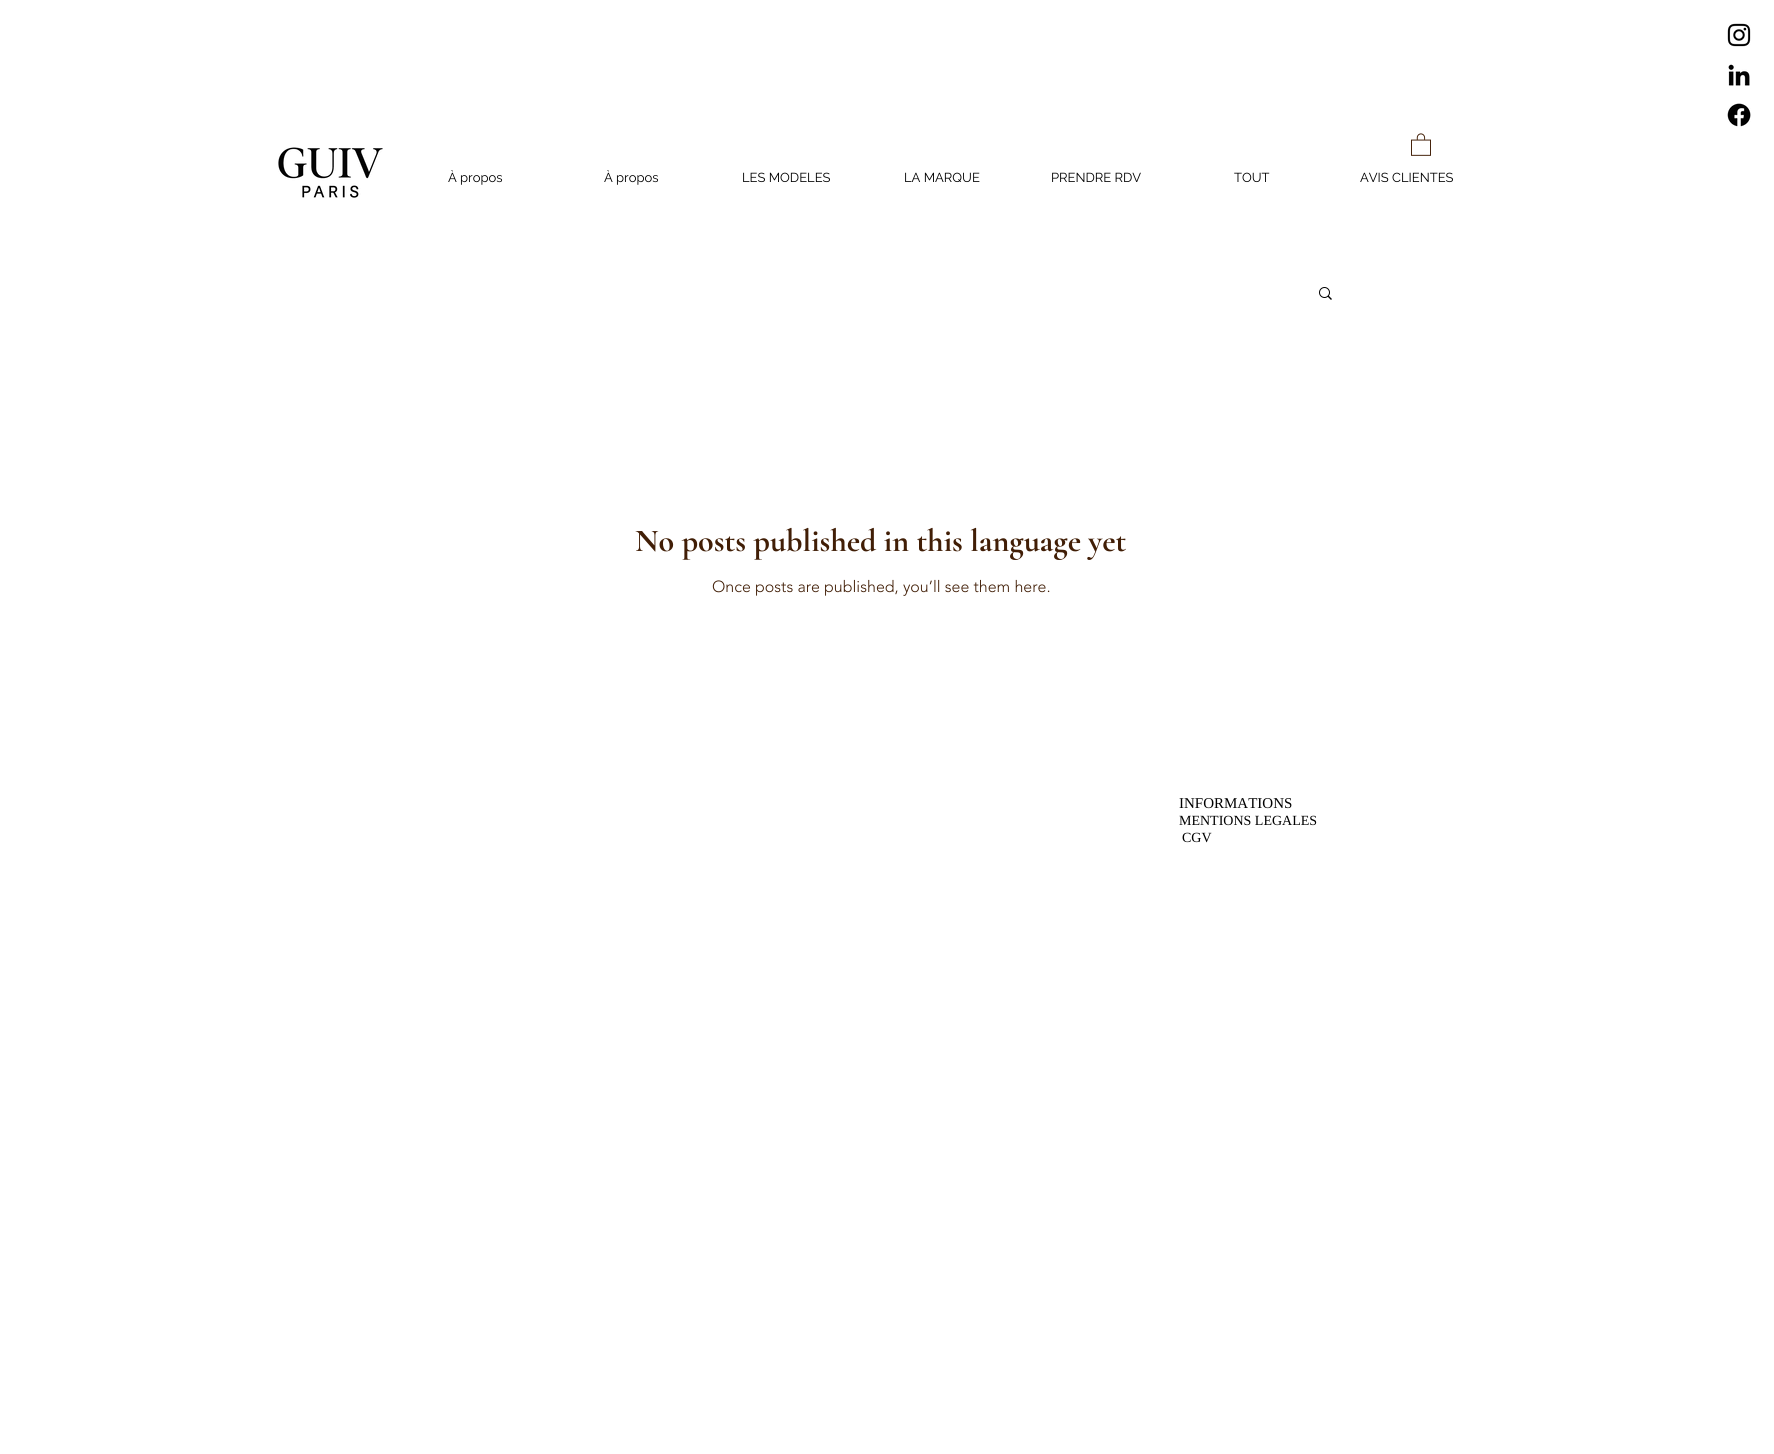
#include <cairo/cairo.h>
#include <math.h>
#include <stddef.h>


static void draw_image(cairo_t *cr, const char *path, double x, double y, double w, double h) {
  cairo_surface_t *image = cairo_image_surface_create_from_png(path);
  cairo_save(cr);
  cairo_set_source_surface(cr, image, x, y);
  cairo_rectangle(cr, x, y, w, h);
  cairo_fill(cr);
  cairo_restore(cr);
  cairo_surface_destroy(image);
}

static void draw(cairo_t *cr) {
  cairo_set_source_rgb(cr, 1, 1, 1);
  cairo_paint(cr);
  draw_image(cr, "images/1.png", 1727, 23, 24, 24);
  draw_image(cr, "images/2.png", 1728, 64, 22, 22);
  draw_image(cr, "images/3.png", 1727, 103, 24, 24);
  draw_image(cr, "images/4.png", 1411, 133, 20, 23);
  draw_image(cr, "images/5.png", 278, 147, 105, 51);
  draw_image(cr, "images/6.png", 1319, 287, 13, 13);
  cairo_select_font_face(cr, "Raleway", CAIRO_FONT_SLANT_NORMAL, CAIRO_FONT_WEIGHT_NORMAL);
  cairo_set_font_size(cr, 13);
  cairo_set_source_rgb(cr, 0, 0, 0);
  cairo_move_to(cr, 448, 182);
  cairo_show_text(cr, "À propos");
  cairo_move_to(cr, 604, 182);
  cairo_show_text(cr, "À propos");
  cairo_move_to(cr, 742, 182);
  cairo_show_text(cr, "LES MODELES");
  cairo_move_to(cr, 904, 182);
  cairo_show_text(cr, "LA MARQUE");
  cairo_move_to(cr, 1051, 182);
  cairo_show_text(cr, "PRENDRE RDV");
  cairo_move_to(cr, 1234, 182);
  cairo_show_text(cr, "TOUT");
  cairo_move_to(cr, 1360, 182);
  cairo_show_text(cr, "AVIS CLIENTES");
  cairo_select_font_face(cr, "Cormorant Garamond", CAIRO_FONT_SLANT_NORMAL, CAIRO_FONT_WEIGHT_BOLD);
  cairo_set_font_size(cr, 32);
  cairo_set_source_rgb(cr, 65 / 255.0, 30 / 255.0, 6 / 255.0);
  cairo_move_to(cr, 635, 551);
  cairo_show_text(cr, "No posts published in this language yet");
  cairo_select_font_face(cr, "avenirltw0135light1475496 Light", CAIRO_FONT_SLANT_NORMAL, CAIRO_FONT_WEIGHT_NORMAL);
  cairo_set_font_size(cr, 16);
  cairo_move_to(cr, 712, 592);
  cairo_show_text(cr, "Once posts are published, you’ll see them here.");
  cairo_select_font_face(cr, "Liberation Serif", CAIRO_FONT_SLANT_NORMAL, CAIRO_FONT_WEIGHT_NORMAL);
  cairo_set_font_size(cr, 15);
  cairo_set_source_rgb(cr, 0, 0, 0);
  cairo_move_to(cr, 1179, 808);
  cairo_show_text(cr, "INFORMATIONS");
  cairo_set_font_size(cr, 14);
  cairo_move_to(cr, 1179, 825);
  cairo_show_text(cr, "MENTIONS LEGALES");
  cairo_move_to(cr, 1182, 842);
  cairo_show_text(cr, "CGV");
}

int main(void) {
  cairo_surface_t *surface = cairo_image_surface_create(CAIRO_FORMAT_RGB24, 1774, 1454);
  cairo_t *cr = cairo_create(surface);
  cairo_font_options_t *options = cairo_font_options_create();
  cairo_font_options_set_hint_metrics(options, CAIRO_HINT_METRICS_OFF);
  cairo_font_options_set_hint_style(options, CAIRO_HINT_STYLE_NONE);
  cairo_set_font_options(cr, options);
  cairo_set_miter_limit(cr, 4);
  draw(cr);
  cairo_surface_write_to_png(surface, "out.png");
  cairo_font_options_destroy(options);
  cairo_destroy(cr);
  cairo_surface_destroy(surface);
  return 0;
}
